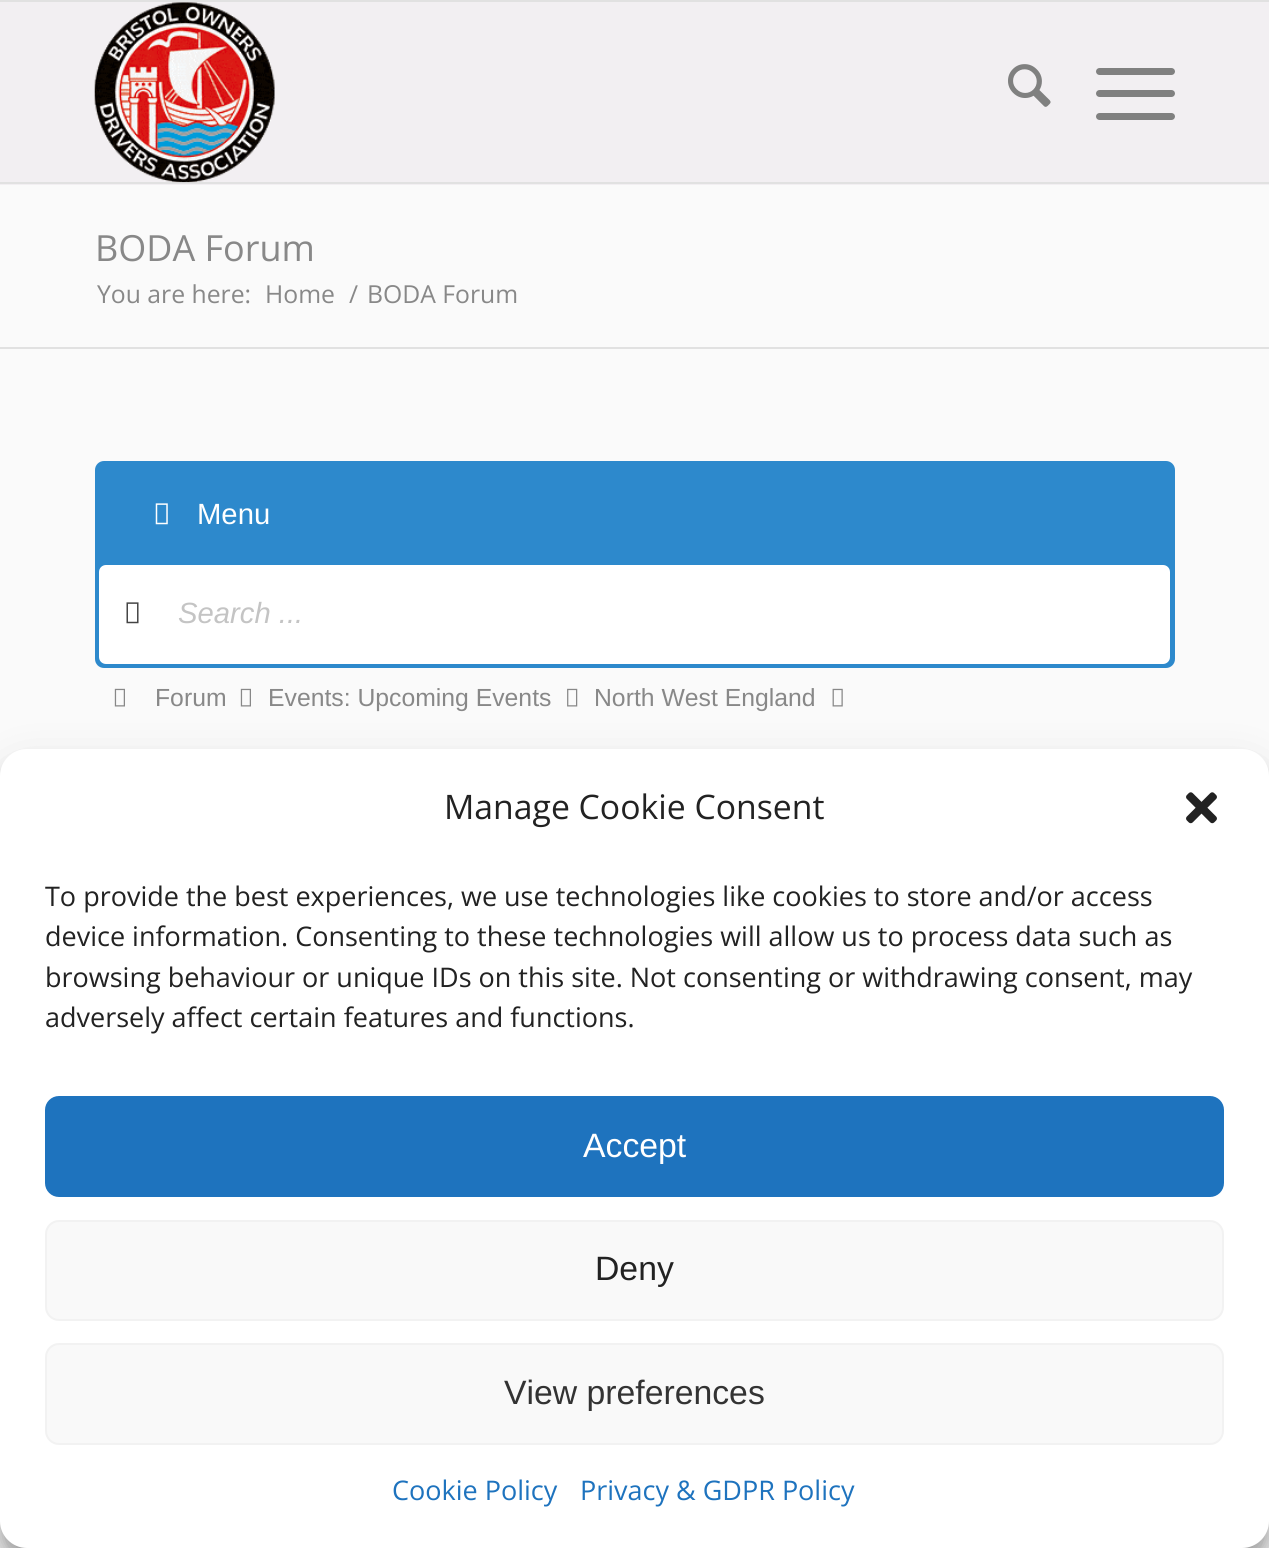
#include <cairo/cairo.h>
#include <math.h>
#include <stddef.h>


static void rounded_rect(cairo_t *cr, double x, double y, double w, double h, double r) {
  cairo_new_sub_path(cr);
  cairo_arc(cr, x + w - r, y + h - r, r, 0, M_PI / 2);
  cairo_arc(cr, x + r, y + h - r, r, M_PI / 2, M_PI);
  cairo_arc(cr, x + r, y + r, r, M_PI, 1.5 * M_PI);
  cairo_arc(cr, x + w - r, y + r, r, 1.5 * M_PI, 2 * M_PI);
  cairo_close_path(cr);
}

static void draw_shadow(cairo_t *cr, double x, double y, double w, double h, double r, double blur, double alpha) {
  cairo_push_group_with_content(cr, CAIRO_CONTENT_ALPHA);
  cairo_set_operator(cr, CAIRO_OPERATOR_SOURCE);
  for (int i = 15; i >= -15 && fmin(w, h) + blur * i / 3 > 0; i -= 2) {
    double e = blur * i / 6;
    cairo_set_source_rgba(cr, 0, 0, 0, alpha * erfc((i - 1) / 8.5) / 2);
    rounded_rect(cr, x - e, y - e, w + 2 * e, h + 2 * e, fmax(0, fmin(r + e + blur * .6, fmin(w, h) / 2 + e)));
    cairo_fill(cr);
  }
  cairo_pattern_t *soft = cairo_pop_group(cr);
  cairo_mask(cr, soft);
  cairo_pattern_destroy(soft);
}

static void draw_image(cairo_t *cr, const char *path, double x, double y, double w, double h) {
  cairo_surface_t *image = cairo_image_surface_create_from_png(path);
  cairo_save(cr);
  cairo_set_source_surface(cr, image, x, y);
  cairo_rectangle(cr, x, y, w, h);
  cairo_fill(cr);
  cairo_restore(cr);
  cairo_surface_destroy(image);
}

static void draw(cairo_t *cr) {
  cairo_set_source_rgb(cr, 250 / 255.0, 250 / 255.0, 250 / 255.0);
  cairo_paint(cr);
  cairo_set_source_rgb(cr, 225 / 255.0, 225 / 255.0, 225 / 255.0);
  cairo_rectangle(cr, 0, 0, 1269, 2);
  cairo_fill(cr);
  cairo_set_source_rgb(cr, 242 / 255.0, 239 / 255.0, 242 / 255.0);
  cairo_rectangle(cr, 0, 2, 1269, 183);
  cairo_fill(cr);
  cairo_set_source_rgb(cr, 225 / 255.0, 225 / 255.0, 225 / 255.0);
  cairo_rectangle(cr, 0, 182, 1269, 2);
  cairo_fill(cr);
  draw_image(cr, "images/1.png", 94, 2, 181, 181);
  draw_image(cr, "images/2.png", 1008, 64, 43, 43);
  cairo_set_source_rgb(cr, 128 / 255.0, 128 / 255.0, 128 / 255.0);
  rounded_rect(cr, 1096, 90, 79, 7, 3.5);
  cairo_fill(cr);
  rounded_rect(cr, 1096, 68, 79, 7, 3.5);
  cairo_fill(cr);
  rounded_rect(cr, 1096, 113, 79, 7, 3.5);
  cairo_fill(cr);
  cairo_set_source_rgb(cr, 225 / 255.0, 225 / 255.0, 225 / 255.0);
  cairo_rectangle(cr, 0, 347, 1269, 2);
  cairo_fill(cr);
  cairo_set_source_rgb(cr, 45 / 255.0, 137 / 255.0, 204 / 255.0);
  rounded_rect(cr, 95, 461, 1080, 207, 9);
  cairo_fill(cr);
  draw_image(cr, "images/3.png", 155, 503, 13, 22);
  cairo_set_source_rgb(cr, 1, 1, 1);
  rounded_rect(cr, 99, 565, 1071, 99, 7);
  cairo_fill(cr);
  draw_image(cr, "images/4.png", 126, 602, 13, 22);
  draw_image(cr, "images/5.png", 114, 688, 11, 19);
  draw_image(cr, "images/5.png", 240, 688, 11, 19);
  draw_image(cr, "images/6.png", 567, 688, 11, 19);
  draw_image(cr, "images/7.png", 832, 688, 11, 19);
  cairo_set_source_rgb(cr, 0, 0, 0);
  draw_shadow(cr, 0, 763, 1269, 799, 27, 7, 0.23);
  draw_shadow(cr, 0, 772, 1269, 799, 27, 22.5, 0.19);
  cairo_set_source_rgb(cr, 1, 1, 1);
  rounded_rect(cr, 0, 749, 1269, 799, 27);
  cairo_fill(cr);
  draw_image(cr, "images/8.png", 1186, 792, 31, 32);
  cairo_set_source_rgb(cr, 30 / 255.0, 115 / 255.0, 190 / 255.0);
  rounded_rect(cr, 46, 1097, 1177, 99, 13);
  cairo_fill_preserve(cr);
  cairo_stroke(cr);
  cairo_set_source_rgb(cr, 249 / 255.0, 249 / 255.0, 249 / 255.0);
  rounded_rect(cr, 46, 1221, 1177, 99, 13);
  cairo_fill_preserve(cr);
  cairo_set_source_rgb(cr, 242 / 255.0, 242 / 255.0, 242 / 255.0);
  cairo_stroke(cr);
  cairo_set_source_rgb(cr, 249 / 255.0, 249 / 255.0, 249 / 255.0);
  rounded_rect(cr, 46, 1344, 1177, 100, 13);
  cairo_fill_preserve(cr);
  cairo_set_source_rgb(cr, 242 / 255.0, 242 / 255.0, 242 / 255.0);
  cairo_stroke(cr);
  cairo_select_font_face(cr, "Open Sans", CAIRO_FONT_SLANT_NORMAL, CAIRO_FONT_WEIGHT_NORMAL);
  cairo_set_font_size(cr, 36);
  cairo_set_source_rgb(cr, 136 / 255.0, 136 / 255.0, 136 / 255.0);
  cairo_move_to(cr, 95, 261);
  cairo_show_text(cr, "BODA Forum");
  cairo_set_font_size(cr, 24.75);
  cairo_move_to(cr, 97, 303);
  cairo_show_text(cr, "You are here:");
  cairo_move_to(cr, 265, 303);
  cairo_show_text(cr, "Home");
  cairo_move_to(cr, 349, 303);
  cairo_show_text(cr, "/");
  cairo_move_to(cr, 367, 303);
  cairo_show_text(cr, "BODA Forum");
  cairo_select_font_face(cr, "Liberation Sans", CAIRO_FONT_SLANT_NORMAL, CAIRO_FONT_WEIGHT_NORMAL);
  cairo_set_font_size(cr, 29.25);
  cairo_set_source_rgb(cr, 1, 1, 1);
  cairo_move_to(cr, 197, 524);
  cairo_show_text(cr, "Menu");
  cairo_select_font_face(cr, "Liberation Sans", CAIRO_FONT_SLANT_ITALIC, CAIRO_FONT_WEIGHT_NORMAL);
  cairo_set_source_rgb(cr, 196 / 255.0, 196 / 255.0, 196 / 255.0);
  cairo_move_to(cr, 178, 623);
  cairo_show_text(cr, "Search ...");
  cairo_select_font_face(cr, "Liberation Sans", CAIRO_FONT_SLANT_NORMAL, CAIRO_FONT_WEIGHT_NORMAL);
  cairo_set_font_size(cr, 24.75);
  cairo_set_source_rgb(cr, 136 / 255.0, 136 / 255.0, 136 / 255.0);
  cairo_move_to(cr, 155, 706);
  cairo_show_text(cr, "Forum");
  cairo_move_to(cr, 268, 706);
  cairo_show_text(cr, "Events: Upcoming Events");
  cairo_move_to(cr, 594, 706);
  cairo_show_text(cr, "North West England");
  cairo_select_font_face(cr, "Open Sans", CAIRO_FONT_SLANT_NORMAL, CAIRO_FONT_WEIGHT_NORMAL);
  cairo_set_font_size(cr, 33.75);
  cairo_set_source_rgb(cr, 34 / 255.0, 34 / 255.0, 34 / 255.0);
  cairo_move_to(cr, 444, 819);
  cairo_show_text(cr, "Manage Cookie Consent");
  cairo_set_font_size(cr, 27);
  cairo_move_to(cr, 45, 906);
  cairo_show_text(cr, "To provide the best experiences, we use technologies like cookies to store and/or access");
  cairo_move_to(cr, 45, 946);
  cairo_show_text(cr, "device information. Consenting to these technologies will allow us to process data such as");
  cairo_move_to(cr, 45, 987);
  cairo_show_text(cr, "browsing behaviour or unique IDs on this site. Not consenting or withdrawing consent, may");
  cairo_move_to(cr, 45, 1027);
  cairo_show_text(cr, "adversely affect certain features and functions.");
  cairo_select_font_face(cr, "Liberation Sans", CAIRO_FONT_SLANT_NORMAL, CAIRO_FONT_WEIGHT_NORMAL);
  cairo_set_font_size(cr, 33.75);
  cairo_set_source_rgb(cr, 1, 1, 1);
  cairo_move_to(cr, 583, 1157);
  cairo_show_text(cr, "Accept");
  cairo_set_source_rgb(cr, 34 / 255.0, 34 / 255.0, 34 / 255.0);
  cairo_move_to(cr, 595, 1280);
  cairo_show_text(cr, "Deny");
  cairo_set_source_rgb(cr, 51 / 255.0, 51 / 255.0, 51 / 255.0);
  cairo_move_to(cr, 504, 1404);
  cairo_show_text(cr, "View preferences");
  cairo_select_font_face(cr, "Open Sans", CAIRO_FONT_SLANT_NORMAL, CAIRO_FONT_WEIGHT_NORMAL);
  cairo_set_font_size(cr, 27);
  cairo_set_source_rgb(cr, 30 / 255.0, 115 / 255.0, 190 / 255.0);
  cairo_move_to(cr, 392, 1500);
  cairo_show_text(cr, "Cookie Policy");
  cairo_move_to(cr, 580, 1500);
  cairo_show_text(cr, "Privacy & GDPR Policy");
}

int main(void) {
  cairo_surface_t *surface = cairo_image_surface_create(CAIRO_FORMAT_RGB24, 1269, 1548);
  cairo_t *cr = cairo_create(surface);
  cairo_font_options_t *options = cairo_font_options_create();
  cairo_font_options_set_hint_metrics(options, CAIRO_HINT_METRICS_OFF);
  cairo_font_options_set_hint_style(options, CAIRO_HINT_STYLE_NONE);
  cairo_set_font_options(cr, options);
  cairo_set_miter_limit(cr, 4);
  draw(cr);
  cairo_surface_write_to_png(surface, "out.png");
  cairo_font_options_destroy(options);
  cairo_destroy(cr);
  cairo_surface_destroy(surface);
  return 0;
}
